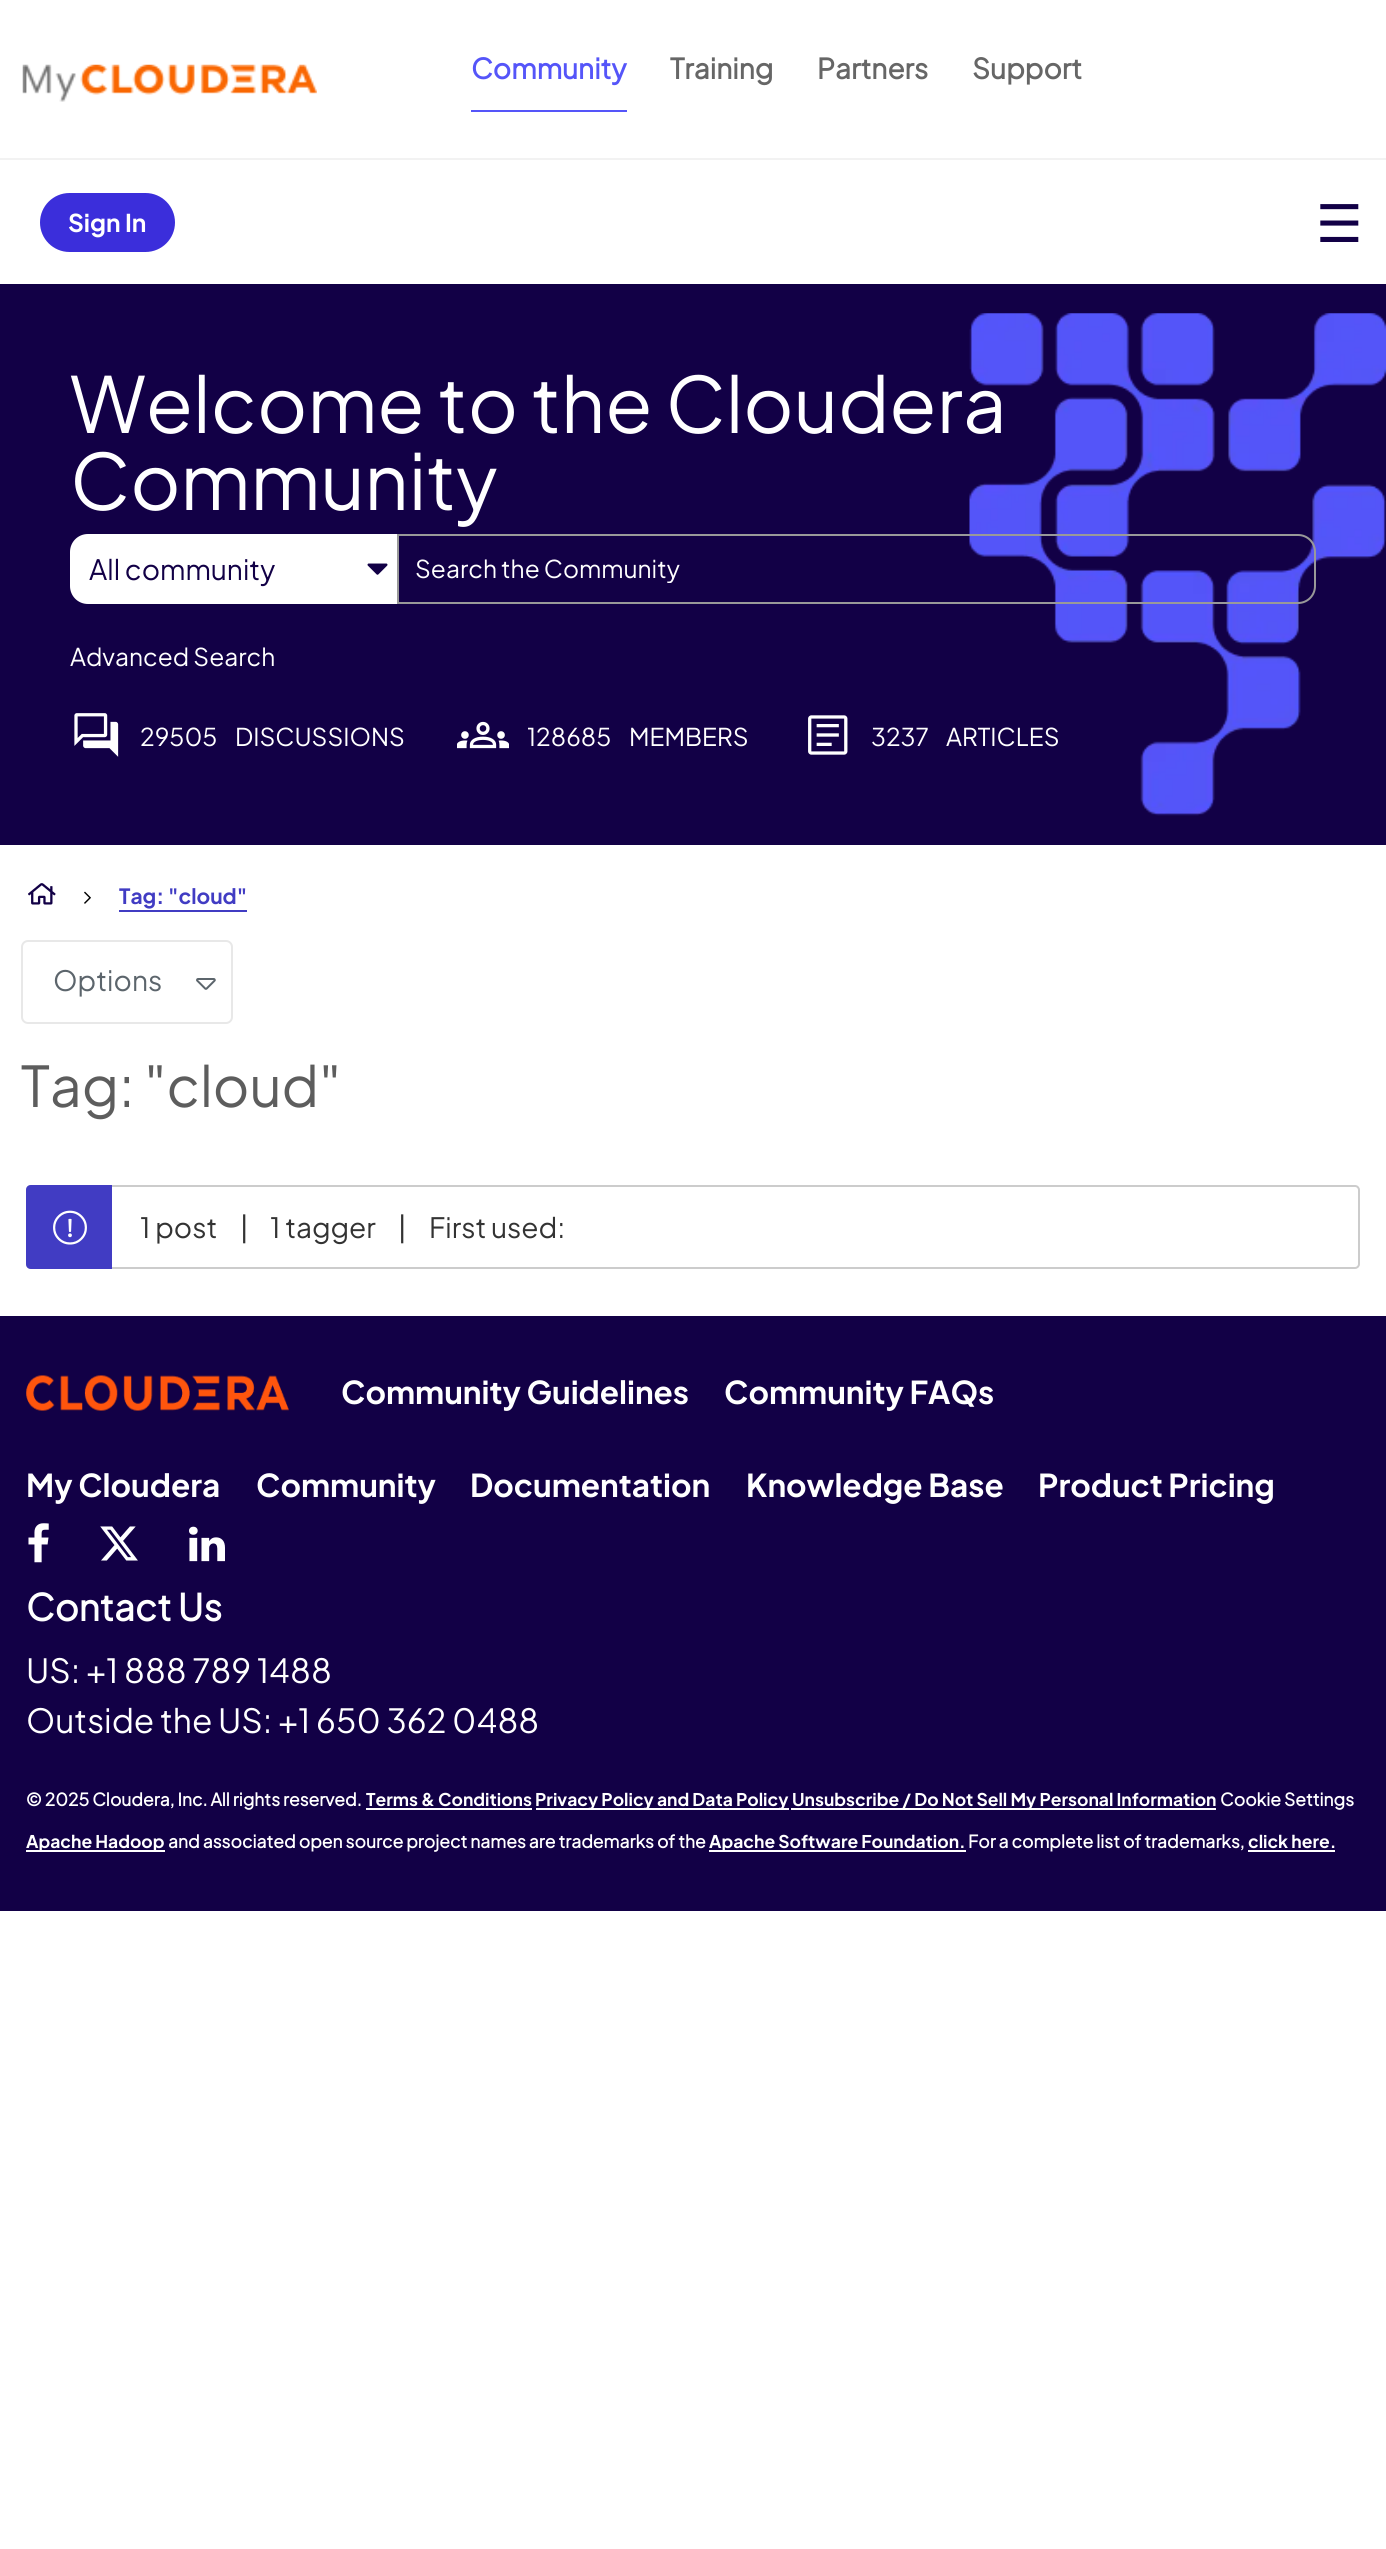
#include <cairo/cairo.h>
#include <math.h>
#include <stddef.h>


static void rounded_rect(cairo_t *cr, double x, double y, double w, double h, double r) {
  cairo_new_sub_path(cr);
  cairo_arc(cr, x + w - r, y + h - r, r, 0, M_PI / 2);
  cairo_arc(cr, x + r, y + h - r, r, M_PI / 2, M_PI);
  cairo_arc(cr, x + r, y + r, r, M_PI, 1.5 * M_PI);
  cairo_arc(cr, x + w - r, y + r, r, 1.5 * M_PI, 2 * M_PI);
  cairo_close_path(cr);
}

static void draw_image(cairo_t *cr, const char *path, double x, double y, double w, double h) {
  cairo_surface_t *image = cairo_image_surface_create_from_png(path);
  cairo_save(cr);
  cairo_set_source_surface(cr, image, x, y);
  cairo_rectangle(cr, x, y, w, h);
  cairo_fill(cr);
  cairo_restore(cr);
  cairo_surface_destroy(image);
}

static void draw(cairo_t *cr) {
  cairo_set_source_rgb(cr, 1, 1, 1);
  cairo_paint(cr);
  cairo_set_source_rgb(cr, 242 / 255.0, 242 / 255.0, 242 / 255.0);
  cairo_rectangle(cr, 0, 158, 1386, 2);
  cairo_fill(cr);
  draw_image(cr, "images/1.png", 22, 64, 295, 38);
  cairo_set_source_rgb(cr, 85 / 255.0, 85 / 255.0, 249 / 255.0);
  cairo_rectangle(cr, 471, 110, 156, 2);
  cairo_fill(cr);
  cairo_set_source_rgb(cr, 59 / 255.0, 46 / 255.0, 219 / 255.0);
  rounded_rect(cr, 40, 193, 135, 59, 29.5);
  cairo_fill(cr);
  cairo_set_source_rgb(cr, 18 / 255.0, 0, 70 / 255.0);
  cairo_rectangle(cr, 0, 284, 1386, 561);
  cairo_fill(cr);
  draw_image(cr, "images/2.png", 969, 313, 417, 503);
  cairo_set_source_rgb(cr, 1, 1, 1);
  cairo_new_path(cr);
  cairo_move_to(cr, 88, 535);
  cairo_line_to(cr, 396, 535);
  cairo_line_to(cr, 396, 603);
  cairo_line_to(cr, 88, 603);
  cairo_curve_to(cr, 78.5, 603, 71, 595.5, 71, 586);
  cairo_line_to(cr, 71, 552);
  cairo_curve_to(cr, 71, 542.5, 78.5, 535, 88, 535);
  cairo_close_path(cr);
  cairo_fill_preserve(cr);
  cairo_stroke(cr);
  draw_image(cr, "images/3.png", 367, 563, 21, 12);
  cairo_new_path(cr);
  cairo_move_to(cr, 398, 535);
  cairo_line_to(cr, 1298, 535);
  cairo_curve_to(cr, 1307.5, 535, 1315, 542.5, 1315, 552);
  cairo_line_to(cr, 1315, 586);
  cairo_curve_to(cr, 1315, 595.5, 1307.5, 603, 1298, 603);
  cairo_line_to(cr, 398, 603);
  cairo_close_path(cr);
  cairo_set_source_rgb(cr, 153 / 255.0, 153 / 255.0, 153 / 255.0);
  cairo_stroke(cr);
  draw_image(cr, "images/4.png", 74, 713, 45, 44);
  draw_image(cr, "images/5.png", 457, 721, 52, 28);
  draw_image(cr, "images/6.png", 808, 715, 40, 40);
  draw_image(cr, "images/7.png", 28, 883, 28, 22);
  draw_image(cr, "images/8.png", 84, 891, 7, 13);
  cairo_set_source_rgb(cr, 65 / 255.0, 60 / 255.0, 195 / 255.0);
  cairo_rectangle(cr, 119, 910, 128, 2);
  cairo_fill(cr);
  rounded_rect(cr, 22, 941, 210, 82, 6);
  cairo_set_source_rgb(cr, 232 / 255.0, 232 / 255.0, 232 / 255.0);
  cairo_stroke(cr);
  draw_image(cr, "images/9.png", 196, 978, 20, 12);
  rounded_rect(cr, 27, 1186, 1332, 82, 4);
  cairo_set_source_rgb(cr, 204 / 255.0, 204 / 255.0, 204 / 255.0);
  cairo_stroke(cr);
  cairo_set_source_rgb(cr, 65 / 255.0, 60 / 255.0, 195 / 255.0);
  cairo_new_path(cr);
  cairo_move_to(cr, 31, 1185);
  cairo_line_to(cr, 112, 1185);
  cairo_line_to(cr, 112, 1269);
  cairo_line_to(cr, 31, 1269);
  cairo_curve_to(cr, 28, 1269, 26, 1267, 26, 1264);
  cairo_line_to(cr, 26, 1190);
  cairo_curve_to(cr, 26, 1187, 28, 1185, 31, 1185);
  cairo_close_path(cr);
  cairo_fill(cr);
  draw_image(cr, "images/10.png", 53, 1210, 34, 35);
  cairo_set_source_rgb(cr, 18 / 255.0, 0, 70 / 255.0);
  cairo_rectangle(cr, 0, 1316, 1386, 595);
  cairo_fill(cr);
  draw_image(cr, "images/11.png", 26, 1375, 263, 36);
  cairo_set_source_rgb(cr, 1, 1, 1);
  cairo_rectangle(cr, 366, 1808, 166, 2);
  cairo_fill(cr);
  cairo_rectangle(cr, 536, 1808, 253, 2);
  cairo_fill(cr);
  cairo_rectangle(cr, 791, 1808, 425, 2);
  cairo_fill(cr);
  cairo_rectangle(cr, 26, 1850, 139, 2);
  cairo_fill(cr);
  cairo_rectangle(cr, 709, 1850, 257, 2);
  cairo_fill(cr);
  cairo_rectangle(cr, 1248, 1850, 87, 2);
  cairo_fill(cr);
  draw_image(cr, "images/12.png", 28, 1523, 21, 40);
  draw_image(cr, "images/13.png", 100, 1526, 38, 35);
  draw_image(cr, "images/14.png", 189, 1526, 36, 36);
  cairo_select_font_face(cr, "Plus Jakarta Sans", CAIRO_FONT_SLANT_NORMAL, CAIRO_FONT_WEIGHT_BOLD);
  cairo_set_font_size(cr, 28);
  cairo_set_source_rgb(cr, 85 / 255.0, 85 / 255.0, 249 / 255.0);
  cairo_move_to(cr, 471, 79);
  cairo_show_text(cr, "Community");
  cairo_set_source_rgb(cr, 102 / 255.0, 102 / 255.0, 102 / 255.0);
  cairo_move_to(cr, 670, 79);
  cairo_show_text(cr, "Training");
  cairo_move_to(cr, 817, 79);
  cairo_show_text(cr, "Partners");
  cairo_move_to(cr, 972, 79);
  cairo_show_text(cr, "Support");
  cairo_select_font_face(cr, "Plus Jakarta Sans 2", CAIRO_FONT_SLANT_NORMAL, CAIRO_FONT_WEIGHT_BOLD);
  cairo_set_font_size(cr, 24.5);
  cairo_set_source_rgb(cr, 1, 1, 1);
  cairo_move_to(cr, 68, 232);
  cairo_show_text(cr, "Sign In");
  cairo_select_font_face(cr, "DejaVu Sans", CAIRO_FONT_SLANT_NORMAL, CAIRO_FONT_WEIGHT_NORMAL);
  cairo_set_font_size(cr, 52);
  cairo_set_source_rgb(cr, 18 / 255.0, 0, 70 / 255.0);
  cairo_move_to(cr, 1316, 242);
  cairo_show_text(cr, "☰");
  cairo_select_font_face(cr, "Plus Jakarta Sans", CAIRO_FONT_SLANT_NORMAL, CAIRO_FONT_WEIGHT_NORMAL);
  cairo_set_font_size(cr, 77);
  cairo_set_source_rgb(cr, 1, 1, 1);
  cairo_move_to(cr, 70, 433);
  cairo_show_text(cr, "Welcome to the Cloudera");
  cairo_move_to(cr, 70, 510);
  cairo_show_text(cr, "Community");
  cairo_set_font_size(cr, 28);
  cairo_set_source_rgb(cr, 18 / 255.0, 0, 70 / 255.0);
  cairo_move_to(cr, 89, 580);
  cairo_show_text(cr, "All community");
  cairo_save(cr);
  cairo_rectangle(cr, 415, 551, 800, 32);
  cairo_clip(cr);
  cairo_set_font_size(cr, 24.5);
  cairo_set_source_rgb(cr, 1, 1, 1);
  cairo_move_to(cr, 415, 578);
  cairo_show_text(cr, "Search the Community");
  cairo_restore(cr);
  cairo_set_font_size(cr, 24.5);
  cairo_set_source_rgb(cr, 1, 1, 1);
  cairo_move_to(cr, 70, 666);
  cairo_show_text(cr, "Advanced Search");
  cairo_move_to(cr, 140, 746);
  cairo_show_text(cr, "29505");
  cairo_move_to(cr, 235, 746);
  cairo_show_text(cr, "DISCUSSIONS");
  cairo_move_to(cr, 527, 746);
  cairo_show_text(cr, "128685");
  cairo_move_to(cr, 629, 746);
  cairo_show_text(cr, "MEMBERS");
  cairo_move_to(cr, 871, 746);
  cairo_show_text(cr, "3237");
  cairo_move_to(cr, 946, 746);
  cairo_show_text(cr, "ARTICLES");
  cairo_select_font_face(cr, "Plus Jakarta Sans 2", CAIRO_FONT_SLANT_NORMAL, CAIRO_FONT_WEIGHT_BOLD);
  cairo_set_font_size(cr, 21);
  cairo_set_source_rgb(cr, 65 / 255.0, 60 / 255.0, 195 / 255.0);
  cairo_move_to(cr, 119, 904);
  cairo_show_text(cr, "Tag: \"cloud\"");
  cairo_select_font_face(cr, "Plus Jakarta Sans", CAIRO_FONT_SLANT_NORMAL, CAIRO_FONT_WEIGHT_NORMAL);
  cairo_set_font_size(cr, 28);
  cairo_set_source_rgb(cr, 92 / 255.0, 101 / 255.0, 108 / 255.0);
  cairo_move_to(cr, 53, 991);
  cairo_show_text(cr, "Options");
  cairo_set_font_size(cr, 56);
  cairo_set_source_rgb(cr, 93 / 255.0, 93 / 255.0, 93 / 255.0);
  cairo_move_to(cr, 21, 1107);
  cairo_show_text(cr, "Tag: \"cloud\"");
  cairo_set_font_size(cr, 28);
  cairo_set_source_rgb(cr, 51 / 255.0, 51 / 255.0, 51 / 255.0);
  cairo_move_to(cr, 140, 1238);
  cairo_show_text(cr, "1 post");
  cairo_move_to(cr, 240, 1238);
  cairo_show_text(cr, "|");
  cairo_move_to(cr, 270, 1238);
  cairo_show_text(cr, "1 tagger");
  cairo_move_to(cr, 398, 1238);
  cairo_show_text(cr, "|");
  cairo_move_to(cr, 429, 1238);
  cairo_show_text(cr, "First used:");
  cairo_select_font_face(cr, "Plus Jakarta Sans 2", CAIRO_FONT_SLANT_NORMAL, CAIRO_FONT_WEIGHT_BOLD);
  cairo_set_font_size(cr, 31.5);
  cairo_set_source_rgb(cr, 1, 1, 1);
  cairo_move_to(cr, 341, 1404);
  cairo_show_text(cr, "Community Guidelines");
  cairo_move_to(cr, 724, 1404);
  cairo_show_text(cr, "Community FAQs");
  cairo_move_to(cr, 26, 1497);
  cairo_show_text(cr, "My Cloudera");
  cairo_move_to(cr, 256, 1497);
  cairo_show_text(cr, "Community");
  cairo_move_to(cr, 470, 1497);
  cairo_show_text(cr, "Documentation");
  cairo_move_to(cr, 746, 1497);
  cairo_show_text(cr, "Knowledge Base");
  cairo_move_to(cr, 1038, 1497);
  cairo_show_text(cr, "Product Pricing");
  cairo_select_font_face(cr, "Plus Jakarta Sans", CAIRO_FONT_SLANT_NORMAL, CAIRO_FONT_WEIGHT_BOLD);
  cairo_set_font_size(cr, 17.5);
  cairo_move_to(cr, 26, 1806);
  cairo_show_text(cr, "© 2025 Cloudera, Inc. All rights reserved.");
  cairo_select_font_face(cr, "Plus Jakarta Sans 2", CAIRO_FONT_SLANT_NORMAL, CAIRO_FONT_WEIGHT_BOLD);
  cairo_move_to(cr, 366, 1806);
  cairo_show_text(cr, "Terms & Conditions");
  cairo_move_to(cr, 535, 1806);
  cairo_show_text(cr, "Privacy Policy and Data Policy");
  cairo_move_to(cr, 792, 1806);
  cairo_show_text(cr, "Unsubscribe / Do Not Sell My Personal Information");
  cairo_select_font_face(cr, "Plus Jakarta Sans", CAIRO_FONT_SLANT_NORMAL, CAIRO_FONT_WEIGHT_BOLD);
  cairo_move_to(cr, 1220, 1806);
  cairo_show_text(cr, "Cookie Settings");
  cairo_select_font_face(cr, "Plus Jakarta Sans 2", CAIRO_FONT_SLANT_NORMAL, CAIRO_FONT_WEIGHT_BOLD);
  cairo_move_to(cr, 26, 1848);
  cairo_show_text(cr, "Apache Hadoop");
  cairo_select_font_face(cr, "Plus Jakarta Sans", CAIRO_FONT_SLANT_NORMAL, CAIRO_FONT_WEIGHT_BOLD);
  cairo_move_to(cr, 168, 1848);
  cairo_show_text(cr, "and associated open source project names are trademarks of the");
  cairo_select_font_face(cr, "Plus Jakarta Sans 2", CAIRO_FONT_SLANT_NORMAL, CAIRO_FONT_WEIGHT_BOLD);
  cairo_move_to(cr, 709, 1848);
  cairo_show_text(cr, "Apache Software Foundation.");
  cairo_select_font_face(cr, "Plus Jakarta Sans", CAIRO_FONT_SLANT_NORMAL, CAIRO_FONT_WEIGHT_BOLD);
  cairo_move_to(cr, 968, 1848);
  cairo_show_text(cr, "For a complete list of trademarks,");
  cairo_select_font_face(cr, "Plus Jakarta Sans 2", CAIRO_FONT_SLANT_NORMAL, CAIRO_FONT_WEIGHT_BOLD);
  cairo_move_to(cr, 1248, 1848);
  cairo_show_text(cr, "click here.");
  cairo_select_font_face(cr, "Plus Jakarta Sans", CAIRO_FONT_SLANT_NORMAL, CAIRO_FONT_WEIGHT_BOLD);
  cairo_set_font_size(cr, 36.75);
  cairo_move_to(cr, 26, 1621);
  cairo_show_text(cr, "Contact Us");
  cairo_select_font_face(cr, "Plus Jakarta Sans", CAIRO_FONT_SLANT_NORMAL, CAIRO_FONT_WEIGHT_NORMAL);
  cairo_set_font_size(cr, 33.25);
  cairo_move_to(cr, 26, 1683);
  cairo_show_text(cr, "US: +1 888 789 1488");
  cairo_move_to(cr, 26, 1733);
  cairo_show_text(cr, "Outside the US: +1 650 362 0488");
}

int main(void) {
  cairo_surface_t *surface = cairo_image_surface_create(CAIRO_FORMAT_RGB24, 1386, 2549);
  cairo_t *cr = cairo_create(surface);
  cairo_font_options_t *options = cairo_font_options_create();
  cairo_font_options_set_hint_metrics(options, CAIRO_HINT_METRICS_OFF);
  cairo_font_options_set_hint_style(options, CAIRO_HINT_STYLE_NONE);
  cairo_set_font_options(cr, options);
  cairo_set_miter_limit(cr, 4);
  draw(cr);
  cairo_surface_write_to_png(surface, "out.png");
  cairo_font_options_destroy(options);
  cairo_destroy(cr);
  cairo_surface_destroy(surface);
  return 0;
}
